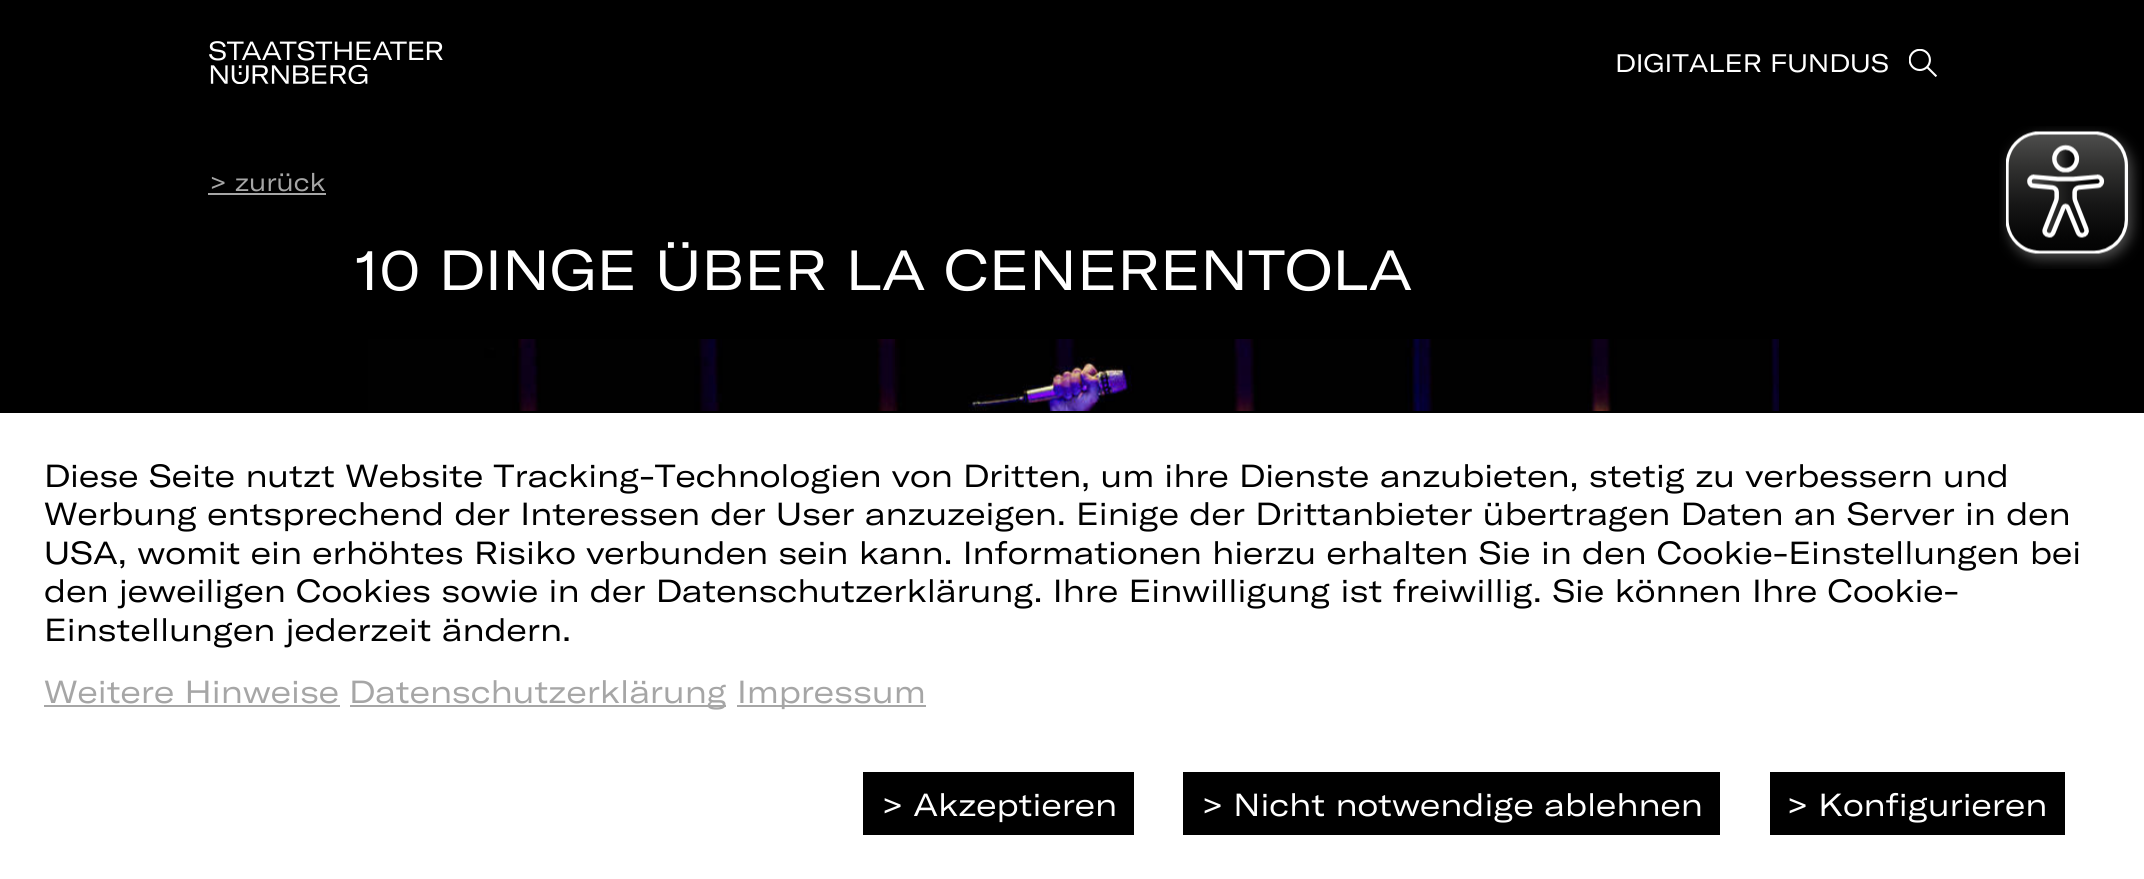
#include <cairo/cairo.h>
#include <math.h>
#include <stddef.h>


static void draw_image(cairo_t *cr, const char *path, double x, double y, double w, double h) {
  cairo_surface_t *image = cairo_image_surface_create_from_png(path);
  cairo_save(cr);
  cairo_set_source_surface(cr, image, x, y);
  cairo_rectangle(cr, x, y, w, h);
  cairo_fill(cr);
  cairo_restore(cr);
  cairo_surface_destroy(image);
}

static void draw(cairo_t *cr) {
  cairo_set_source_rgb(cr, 0, 0, 0);
  cairo_paint(cr);
  draw_image(cr, "images/1.png", 209, 41, 234, 43);
  draw_image(cr, "images/2.png", 1909, 49, 28, 28);
  draw_image(cr, "images/3.png", 1999, 126, 143, 143);
  cairo_set_source_rgb(cr, 166 / 255.0, 166 / 255.0, 166 / 255.0);
  cairo_rectangle(cr, 208, 193, 118, 2);
  cairo_fill(cr);
  draw_image(cr, "images/4.png", 366, 339, 1414, 72);
  cairo_set_source_rgb(cr, 1, 1, 1);
  cairo_rectangle(cr, 0, 413, 2144, 466);
  cairo_fill(cr);
  cairo_set_source_rgb(cr, 166 / 255.0, 166 / 255.0, 166 / 255.0);
  cairo_rectangle(cr, 44, 705, 296, 2);
  cairo_fill(cr);
  cairo_rectangle(cr, 350, 705, 376, 2);
  cairo_fill(cr);
  cairo_rectangle(cr, 737, 705, 189, 2);
  cairo_fill(cr);
  cairo_set_source_rgb(cr, 0, 0, 0);
  cairo_rectangle(cr, 863, 772, 271, 63);
  cairo_fill(cr);
  cairo_rectangle(cr, 1183, 772, 537, 63);
  cairo_fill(cr);
  cairo_rectangle(cr, 1770, 772, 295, 63);
  cairo_fill(cr);
  cairo_select_font_face(cr, "GT America", CAIRO_FONT_SLANT_NORMAL, CAIRO_FONT_WEIGHT_NORMAL);
  cairo_set_font_size(cr, 25);
  cairo_set_source_rgb(cr, 1, 1, 1);
  cairo_move_to(cr, 1615, 72);
  cairo_show_text(cr, "DIGITALER FUNDUS");
  cairo_set_source_rgb(cr, 166 / 255.0, 166 / 255.0, 166 / 255.0);
  cairo_move_to(cr, 209, 191);
  cairo_show_text(cr, "> zurück");
  cairo_set_font_size(cr, 55.75);
  cairo_set_source_rgb(cr, 1, 1, 1);
  cairo_move_to(cr, 355, 290);
  cairo_show_text(cr, "10 DINGE ÜBER LA CENERENTOLA");
  cairo_set_font_size(cr, 31.5);
  cairo_set_source_rgb(cr, 0, 0, 0);
  cairo_move_to(cr, 44, 487);
  cairo_show_text(cr, "Diese Seite nutzt Website Tracking-Technologien von Dritten, um ihre Dienste anzubieten, stetig zu verbessern und");
  cairo_move_to(cr, 44, 525);
  cairo_show_text(cr, "Werbung entsprechend der Interessen der User anzuzeigen. Einige der Drittanbieter übertragen Daten an Server in den");
  cairo_move_to(cr, 44, 564);
  cairo_show_text(cr, "USA, womit ein erhöhtes Risiko verbunden sein kann. Informationen hierzu erhalten Sie in den Cookie-Einstellungen bei");
  cairo_move_to(cr, 44, 602);
  cairo_show_text(cr, "den jeweiligen Cookies sowie in der Datenschutzerklärung. Ihre Einwilligung ist freiwillig. Sie können Ihre Cookie-");
  cairo_move_to(cr, 44, 641);
  cairo_show_text(cr, "Einstellungen jederzeit ändern.");
  cairo_set_source_rgb(cr, 166 / 255.0, 166 / 255.0, 166 / 255.0);
  cairo_move_to(cr, 44, 703);
  cairo_show_text(cr, "Weitere Hinweise");
  cairo_move_to(cr, 349, 703);
  cairo_show_text(cr, "Datenschutzerklärung");
  cairo_move_to(cr, 737, 703);
  cairo_show_text(cr, "Impressum");
  cairo_set_source_rgb(cr, 1, 1, 1);
  cairo_move_to(cr, 881, 816);
  cairo_show_text(cr, "> Akzeptieren");
  cairo_move_to(cr, 1201, 816);
  cairo_show_text(cr, "> Nicht notwendige ablehnen");
  cairo_move_to(cr, 1786, 816);
  cairo_show_text(cr, "> Konfigurieren");
}

int main(void) {
  cairo_surface_t *surface = cairo_image_surface_create(CAIRO_FORMAT_RGB24, 2144, 879);
  cairo_t *cr = cairo_create(surface);
  cairo_font_options_t *options = cairo_font_options_create();
  cairo_font_options_set_hint_metrics(options, CAIRO_HINT_METRICS_OFF);
  cairo_font_options_set_hint_style(options, CAIRO_HINT_STYLE_NONE);
  cairo_set_font_options(cr, options);
  cairo_set_miter_limit(cr, 4);
  draw(cr);
  cairo_surface_write_to_png(surface, "out.png");
  cairo_font_options_destroy(options);
  cairo_destroy(cr);
  cairo_surface_destroy(surface);
  return 0;
}
